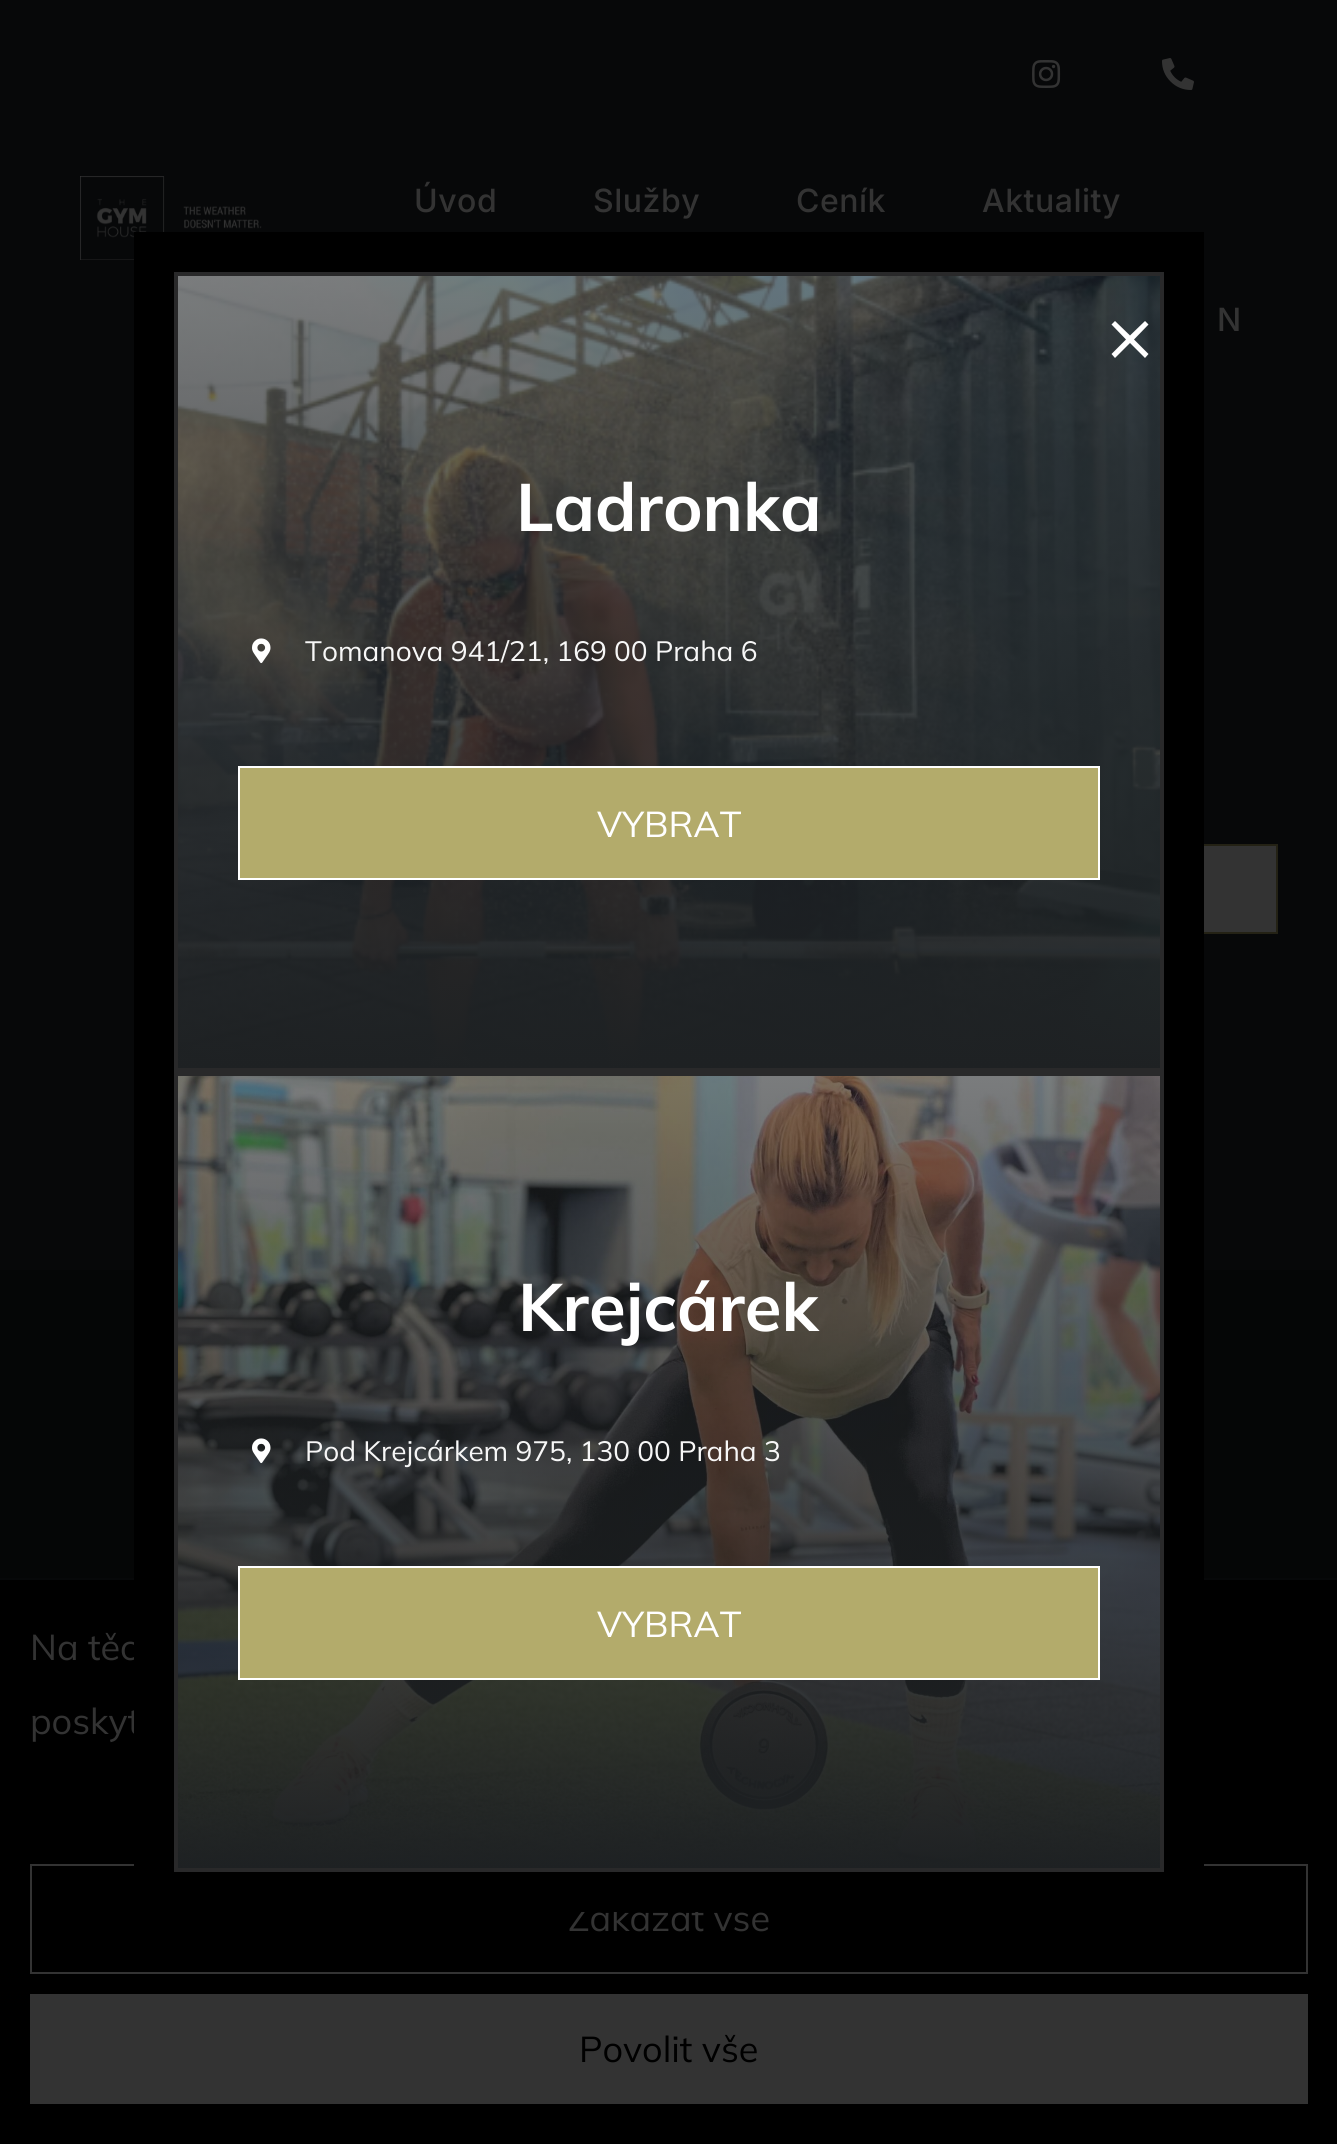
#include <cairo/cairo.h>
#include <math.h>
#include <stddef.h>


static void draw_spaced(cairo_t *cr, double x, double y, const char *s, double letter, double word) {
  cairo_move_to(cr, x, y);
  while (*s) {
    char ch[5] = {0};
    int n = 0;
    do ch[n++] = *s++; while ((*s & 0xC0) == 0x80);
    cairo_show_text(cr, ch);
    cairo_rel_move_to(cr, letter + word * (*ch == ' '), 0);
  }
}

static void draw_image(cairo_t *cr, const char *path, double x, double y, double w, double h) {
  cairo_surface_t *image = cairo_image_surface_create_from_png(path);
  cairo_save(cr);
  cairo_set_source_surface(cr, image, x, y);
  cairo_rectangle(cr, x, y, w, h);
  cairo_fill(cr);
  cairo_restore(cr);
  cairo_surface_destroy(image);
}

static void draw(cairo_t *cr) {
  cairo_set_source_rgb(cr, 7 / 255.0, 8 / 255.0, 9 / 255.0);
  cairo_paint(cr);
  draw_image(cr, "images/1.png", 80, 176, 182, 84);
  draw_image(cr, "images/2.png", 1032, 60, 29, 28);
  draw_image(cr, "images/3.png", 1162, 58, 32, 32);
  cairo_set_source_rgb(cr, 51 / 255.0, 51 / 255.0, 51 / 255.0);
  cairo_rectangle(cr, 1204, 846, 72, 86);
  cairo_fill(cr);
  cairo_rectangle(cr, 913, 845, 364, 88);
  cairo_set_source_rgb(cr, 36 / 255.0, 34 / 255.0, 21 / 255.0);
  cairo_stroke(cr);
  cairo_set_source_rgb(cr, 5 / 255.0, 6 / 255.0, 6 / 255.0);
  cairo_rectangle(cr, 0, 1270, 1337, 308);
  cairo_fill(cr);
  cairo_set_source_rgb(cr, 0, 0, 0);
  cairo_rectangle(cr, 0, 1580, 1337, 564);
  cairo_fill(cr);
  cairo_rectangle(cr, 31, 1865, 1276, 108);
  cairo_set_source_rgb(cr, 51 / 255.0, 51 / 255.0, 51 / 255.0);
  cairo_stroke(cr);
  cairo_rectangle(cr, 30, 1994, 1278, 110);
  cairo_fill(cr);
  cairo_select_font_face(cr, "Inter Medium", CAIRO_FONT_SLANT_NORMAL, CAIRO_FONT_WEIGHT_NORMAL);
  cairo_set_font_size(cr, 32);
  draw_spaced(cr, 414, 212, "Úvod", 0.5, 0);
  draw_spaced(cr, 593, 212, "Služby", 0.5, 0);
  draw_spaced(cr, 796, 212, "Ceník", 0.5, 0);
  draw_spaced(cr, 982, 212, "Aktuality", 0.5, 0);
  draw_spaced(cr, 1217, 331, "N", 0.5, 0);
  cairo_select_font_face(cr, "Mulish", CAIRO_FONT_SLANT_NORMAL, CAIRO_FONT_WEIGHT_NORMAL);
  cairo_set_font_size(cr, 36);
  cairo_move_to(cr, 30, 1660);
  cairo_show_text(cr, "Na těc");
  cairo_move_to(cr, 30, 1734);
  cairo_show_text(cr, "poskyt");
  cairo_move_to(cr, 568, 1931);
  cairo_show_text(cr, "Zakázat vše");
  cairo_set_source_rgb(cr, 0, 0, 0);
  cairo_rectangle(cr, 134, 232, 1070, 1680);
  cairo_fill(cr);
  draw_image(cr, "images/4.png", 178, 276, 982, 792);
  cairo_rectangle(cr, 176, 274, 986, 796);
  cairo_set_source_rgb(cr, 41 / 255.0, 41 / 255.0, 42 / 255.0);
  cairo_set_line_width(cr, 4);
  cairo_stroke(cr);
  cairo_set_source_rgb(cr, 1, 1, 1);
  cairo_new_path(cr);
  cairo_move_to(cr, 1148.5, 324.5);
  cairo_line_to(cr, 1134, 339.5);
  cairo_line_to(cr, 1148.5, 354);
  cairo_line_to(cr, 1145, 358);
  cairo_line_to(cr, 1130, 343);
  cairo_line_to(cr, 1115, 358);
  cairo_line_to(cr, 1111.5, 354);
  cairo_line_to(cr, 1126, 339.5);
  cairo_line_to(cr, 1111.5, 324.5);
  cairo_line_to(cr, 1115, 321);
  cairo_line_to(cr, 1130, 335.5);
  cairo_line_to(cr, 1145, 321);
  cairo_close_path(cr);
  cairo_fill(cr);
  draw_image(cr, "images/6.png", 178, 1076, 982, 792);
  cairo_rectangle(cr, 176, 1074, 986, 796);
  cairo_set_source_rgb(cr, 41 / 255.0, 41 / 255.0, 42 / 255.0);
  cairo_stroke(cr);
  cairo_set_source_rgb(cr, 179 / 255.0, 171 / 255.0, 107 / 255.0);
  cairo_rectangle(cr, 239, 1567, 860, 112);
  cairo_fill_preserve(cr);
  cairo_set_source_rgb(cr, 1, 1, 1);
  cairo_set_line_width(cr, 2);
  cairo_stroke(cr);
  cairo_move_to(cr, 597, 1637);
  cairo_show_text(cr, "VYBRAT");
  cairo_set_font_size(cr, 28);
  cairo_set_source_rgb(cr, 247 / 255.0, 247 / 255.0, 247 / 255.0);
  cairo_move_to(cr, 305, 1461);
  cairo_show_text(cr, "Pod Krejcárkem 975, 130 00 Praha 3");
  draw_image(cr, "images/7.png", 252, 1438, 19, 26);
  cairo_select_font_face(cr, "Mulish", CAIRO_FONT_SLANT_NORMAL, CAIRO_FONT_WEIGHT_BOLD);
  cairo_set_font_size(cr, 67);
  cairo_set_source_rgb(cr, 1, 1, 1);
  cairo_move_to(cr, 518, 1331);
  cairo_show_text(cr, "Krejcárek");
  cairo_set_source_rgb(cr, 179 / 255.0, 171 / 255.0, 107 / 255.0);
  cairo_rectangle(cr, 239, 767, 860, 112);
  cairo_fill_preserve(cr);
  cairo_set_source_rgb(cr, 1, 1, 1);
  cairo_stroke(cr);
  cairo_select_font_face(cr, "Mulish", CAIRO_FONT_SLANT_NORMAL, CAIRO_FONT_WEIGHT_NORMAL);
  cairo_set_font_size(cr, 36);
  cairo_move_to(cr, 597, 837);
  cairo_show_text(cr, "VYBRAT");
  cairo_set_font_size(cr, 28);
  cairo_set_source_rgb(cr, 247 / 255.0, 247 / 255.0, 247 / 255.0);
  cairo_move_to(cr, 305, 661);
  cairo_show_text(cr, "Tomanova 941/21, 169 00 Praha 6");
  draw_image(cr, "images/5.png", 252, 638, 19, 26);
  cairo_select_font_face(cr, "Mulish", CAIRO_FONT_SLANT_NORMAL, CAIRO_FONT_WEIGHT_BOLD);
  cairo_set_font_size(cr, 67);
  cairo_set_source_rgb(cr, 1, 1, 1);
  cairo_move_to(cr, 516, 531);
  cairo_show_text(cr, "Ladronka");
  cairo_select_font_face(cr, "Mulish", CAIRO_FONT_SLANT_NORMAL, CAIRO_FONT_WEIGHT_NORMAL);
  cairo_set_font_size(cr, 36);
  cairo_set_source_rgb(cr, 0, 0, 0);
  cairo_move_to(cr, 579, 2062);
  cairo_show_text(cr, "Povolit vše");
}

int main(void) {
  cairo_surface_t *surface = cairo_image_surface_create(CAIRO_FORMAT_RGB24, 1337, 2144);
  cairo_t *cr = cairo_create(surface);
  cairo_font_options_t *options = cairo_font_options_create();
  cairo_font_options_set_hint_metrics(options, CAIRO_HINT_METRICS_OFF);
  cairo_font_options_set_hint_style(options, CAIRO_HINT_STYLE_NONE);
  cairo_set_font_options(cr, options);
  cairo_set_miter_limit(cr, 4);
  draw(cr);
  cairo_surface_write_to_png(surface, "out.png");
  cairo_font_options_destroy(options);
  cairo_destroy(cr);
  cairo_surface_destroy(surface);
  return 0;
}
